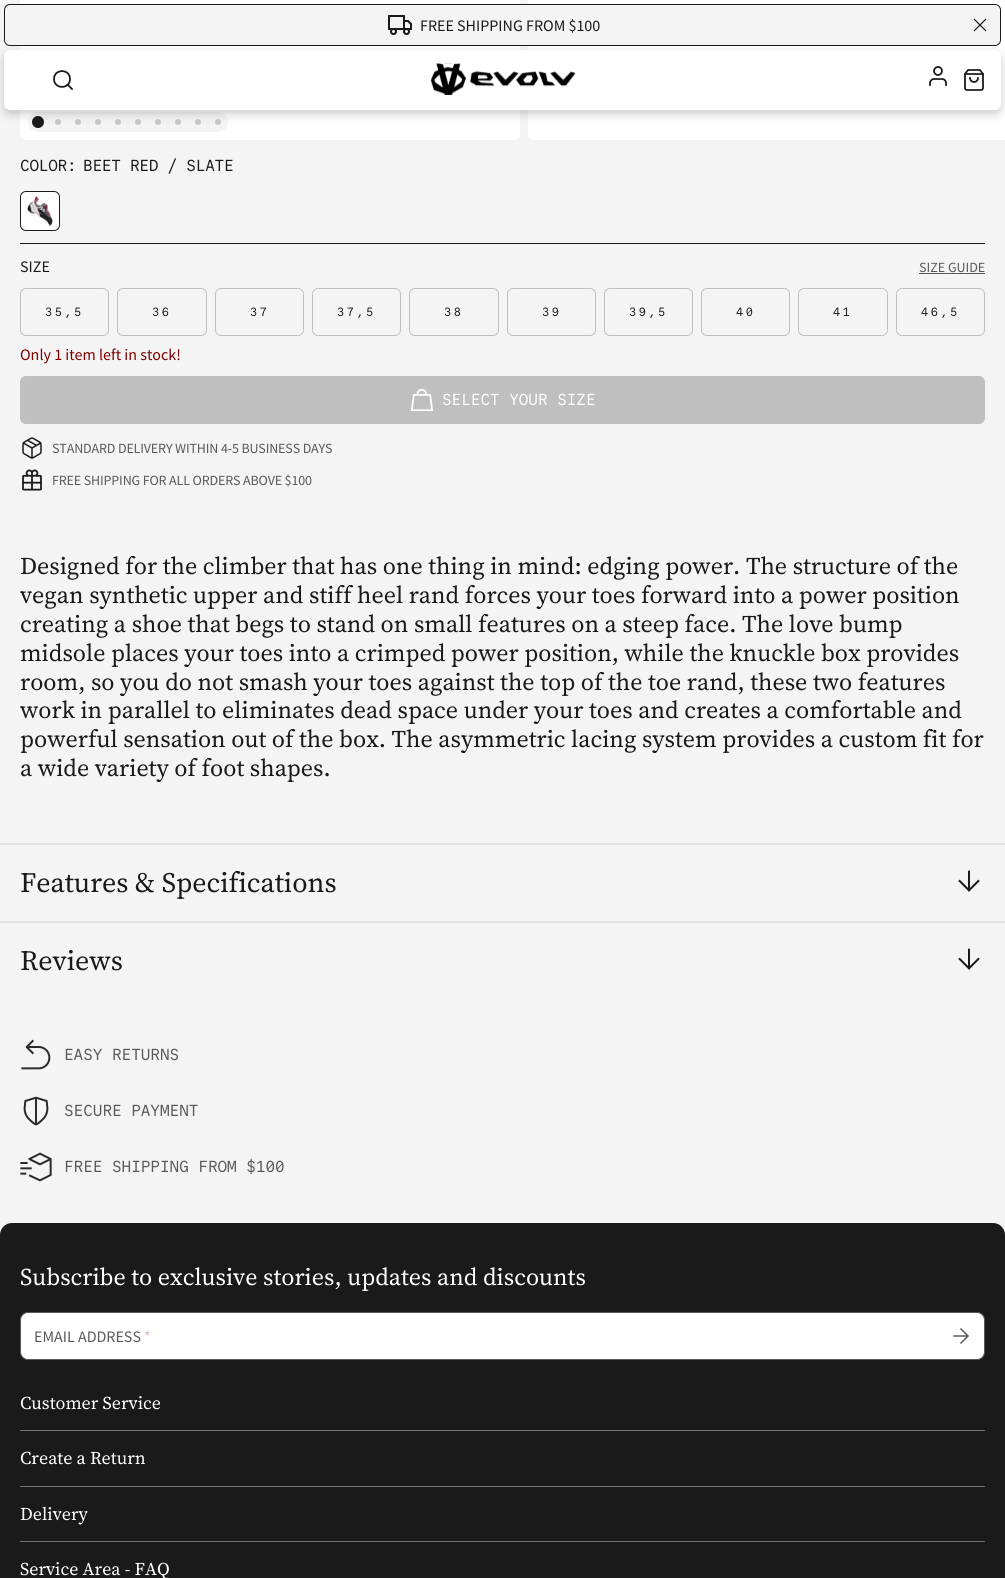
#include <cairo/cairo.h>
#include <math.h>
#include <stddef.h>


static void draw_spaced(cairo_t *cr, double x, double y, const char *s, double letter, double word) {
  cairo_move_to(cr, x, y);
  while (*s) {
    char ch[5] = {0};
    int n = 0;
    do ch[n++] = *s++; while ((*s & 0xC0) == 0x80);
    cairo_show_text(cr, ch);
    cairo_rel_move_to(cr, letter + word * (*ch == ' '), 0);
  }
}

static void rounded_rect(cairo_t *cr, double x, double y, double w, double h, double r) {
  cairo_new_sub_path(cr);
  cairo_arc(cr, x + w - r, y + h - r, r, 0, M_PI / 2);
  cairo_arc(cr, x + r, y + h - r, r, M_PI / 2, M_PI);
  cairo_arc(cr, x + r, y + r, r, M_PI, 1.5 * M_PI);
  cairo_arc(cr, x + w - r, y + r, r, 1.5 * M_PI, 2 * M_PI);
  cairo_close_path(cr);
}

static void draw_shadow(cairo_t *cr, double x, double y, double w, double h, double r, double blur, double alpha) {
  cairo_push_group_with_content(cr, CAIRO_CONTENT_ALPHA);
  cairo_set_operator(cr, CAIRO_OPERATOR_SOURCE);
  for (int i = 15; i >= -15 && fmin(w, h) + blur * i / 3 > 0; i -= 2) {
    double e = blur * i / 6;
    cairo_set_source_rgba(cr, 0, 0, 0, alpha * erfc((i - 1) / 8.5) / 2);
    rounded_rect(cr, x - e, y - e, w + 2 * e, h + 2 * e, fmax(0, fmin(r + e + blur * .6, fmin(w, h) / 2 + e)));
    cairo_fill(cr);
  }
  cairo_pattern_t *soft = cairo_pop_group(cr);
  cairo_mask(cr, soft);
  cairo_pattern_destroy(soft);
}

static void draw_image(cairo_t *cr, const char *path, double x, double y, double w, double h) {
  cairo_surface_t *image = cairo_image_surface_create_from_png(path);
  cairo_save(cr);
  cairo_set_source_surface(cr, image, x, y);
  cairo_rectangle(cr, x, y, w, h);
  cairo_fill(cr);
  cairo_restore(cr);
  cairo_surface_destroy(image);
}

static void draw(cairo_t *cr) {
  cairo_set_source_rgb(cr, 244 / 255.0, 244 / 255.0, 244 / 255.0);
  cairo_paint(cr);
  cairo_set_source_rgb(cr, 1, 1, 1);
  rounded_rect(cr, 20, -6, 500, 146, 6);
  cairo_fill(cr);
  cairo_new_path(cr);
  cairo_move_to(cr, 534, -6);
  cairo_line_to(cr, 1005, -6);
  cairo_line_to(cr, 1005, 140);
  cairo_line_to(cr, 534, 140);
  cairo_curve_to(cr, 530.5, 140, 528, 137.5, 528, 134);
  cairo_line_to(cr, 528, 0);
  cairo_curve_to(cr, 528, -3.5, 530.5, -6, 534, -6);
  cairo_close_path(cr);
  cairo_fill(cr);
  cairo_set_source_rgb(cr, 244 / 255.0, 244 / 255.0, 244 / 255.0);
  rounded_rect(cr, 4.5, 4.5, 996, 41, 5.5);
  cairo_fill_preserve(cr);
  cairo_set_source_rgb(cr, 26 / 255.0, 26 / 255.0, 26 / 255.0);
  cairo_set_line_width(cr, 1);
  cairo_stroke(cr);
  draw_image(cr, "images/1.png", 388, 15, 24, 20);
  cairo_new_path(cr);
  cairo_move_to(cr, 985.5, 19.5);
  cairo_line_to(cr, 974.5, 30.5);
  cairo_move_to(cr, 974.5, 19.5);
  cairo_line_to(cr, 985.5, 30.5);
  cairo_set_line_width(cr, 1.2);
  cairo_set_line_cap(cr, CAIRO_LINE_CAP_SQUARE);
  cairo_set_line_join(cr, CAIRO_LINE_JOIN_ROUND);
  cairo_stroke(cr);
  cairo_set_source_rgb(cr, 244 / 255.0, 244 / 255.0, 244 / 255.0);
  rounded_rect(cr, 28, 112, 200, 20, 10);
  cairo_fill(cr);
  cairo_set_source_rgb(cr, 26 / 255.0, 26 / 255.0, 26 / 255.0);
  cairo_arc(cr, 38, 122, 6, 0, 2 * M_PI);
  cairo_fill(cr);
  cairo_set_source_rgb(cr, 200 / 255.0, 200 / 255.0, 200 / 255.0);
  cairo_arc(cr, 58, 122, 3, 0, 2 * M_PI);
  cairo_fill(cr);
  cairo_arc(cr, 78, 122, 3, 0, 2 * M_PI);
  cairo_fill(cr);
  cairo_arc(cr, 98, 122, 3, 0, 2 * M_PI);
  cairo_fill(cr);
  cairo_arc(cr, 118, 122, 3, 0, 2 * M_PI);
  cairo_fill(cr);
  cairo_arc(cr, 138, 122, 3, 0, 2 * M_PI);
  cairo_fill(cr);
  cairo_arc(cr, 158, 122, 3, 0, 2 * M_PI);
  cairo_fill(cr);
  cairo_arc(cr, 178, 122, 3, 0, 2 * M_PI);
  cairo_fill(cr);
  cairo_arc(cr, 198, 122, 3, 0, 2 * M_PI);
  cairo_fill(cr);
  cairo_arc(cr, 218, 122, 3, 0, 2 * M_PI);
  cairo_fill(cr);
  cairo_set_source_rgb(cr, 0, 0, 0);
  draw_shadow(cr, 4, 54, 997, 60, 6, 5, 0.2);
  cairo_set_source_rgb(cr, 1, 1, 1);
  rounded_rect(cr, 4, 50, 997, 60, 6);
  cairo_fill(cr);
  cairo_new_path(cr);
  cairo_move_to(cr, 72, 89);
  cairo_line_to(cr, 67.5, 84.5);
  cairo_move_to(cr, 70, 79);
  cairo_curve_to(cr, 70, 89.5, 54, 89.5, 54, 79);
  cairo_curve_to(cr, 54, 68.5, 70, 68.5, 70, 79);
  cairo_close_path(cr);
  cairo_set_source_rgb(cr, 26 / 255.0, 26 / 255.0, 26 / 255.0);
  cairo_set_line_width(cr, 1.8);
  cairo_stroke(cr);
  draw_image(cr, "images/2.png", 430, 63, 146, 33);
  draw_image(cr, "images/3.png", 929, 66, 18, 20);
  draw_image(cr, "images/4.png", 963, 69, 22, 22);
  cairo_set_source_rgb(cr, 1, 1, 1);
  rounded_rect(cr, 20.5, 191.5, 39, 39, 5.5);
  cairo_fill_preserve(cr);
  cairo_set_source_rgb(cr, 26 / 255.0, 26 / 255.0, 26 / 255.0);
  cairo_set_line_width(cr, 1);
  cairo_set_line_cap(cr, CAIRO_LINE_CAP_BUTT);
  cairo_set_line_join(cr, CAIRO_LINE_JOIN_MITER);
  cairo_stroke(cr);
  draw_image(cr, "images/5.png", 27, 196, 26, 31);
  cairo_rectangle(cr, 20, 243, 965, 1);
  cairo_fill(cr);
  cairo_set_source_rgb(cr, 89 / 255.0, 89 / 255.0, 89 / 255.0);
  cairo_rectangle(cr, 919, 273, 66, 1);
  cairo_fill(cr);
  rounded_rect(cr, 20.5, 288.5, 88, 47, 5.5);
  cairo_set_source_rgb(cr, 191 / 255.0, 191 / 255.0, 191 / 255.0);
  cairo_stroke(cr);
  rounded_rect(cr, 117.5, 288.5, 89, 47, 5.5);
  cairo_stroke(cr);
  rounded_rect(cr, 215.5, 288.5, 88, 47, 5.5);
  cairo_stroke(cr);
  rounded_rect(cr, 312.5, 288.5, 88, 47, 5.5);
  cairo_stroke(cr);
  rounded_rect(cr, 409.5, 288.5, 89, 47, 5.5);
  cairo_stroke(cr);
  rounded_rect(cr, 507.5, 288.5, 88, 47, 5.5);
  cairo_stroke(cr);
  rounded_rect(cr, 604.5, 288.5, 88, 47, 5.5);
  cairo_stroke(cr);
  rounded_rect(cr, 701.5, 288.5, 88, 47, 5.5);
  cairo_stroke(cr);
  rounded_rect(cr, 798.5, 288.5, 89, 47, 5.5);
  cairo_stroke(cr);
  rounded_rect(cr, 896.5, 288.5, 88, 47, 5.5);
  cairo_stroke(cr);
  rounded_rect(cr, 20.5, 376.5, 964, 47, 5.5);
  cairo_fill_preserve(cr);
  cairo_stroke(cr);
  draw_image(cr, "images/6.png", 410, 388, 24, 24);
  draw_image(cr, "images/7.png", 22, 437, 20, 22);
  draw_image(cr, "images/8.png", 22, 469, 20, 22);
  cairo_set_source_rgb(cr, 222 / 255.0, 226 / 255.0, 229 / 255.0);
  cairo_rectangle(cr, 0, 843, 1005, 2);
  cairo_fill(cr);
  draw_image(cr, "images/9.png", 958, 870, 22, 22);
  cairo_rectangle(cr, 0, 921, 1005, 2);
  cairo_fill(cr);
  draw_image(cr, "images/9.png", 958, 948, 22, 22);
  draw_image(cr, "images/10.png", 21, 1039, 30, 31);
  draw_image(cr, "images/11.png", 23, 1096, 26, 30);
  draw_image(cr, "images/12.png", 20, 1152, 32, 30);
  cairo_set_source_rgb(cr, 26 / 255.0, 26 / 255.0, 26 / 255.0);
  rounded_rect(cr, 0, 1223, 1005, 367, 12);
  cairo_fill(cr);
  cairo_set_source_rgb(cr, 1, 1, 1);
  rounded_rect(cr, 20.5, 1312.5, 964, 47, 7.5);
  cairo_fill_preserve(cr);
  cairo_set_source_rgb(cr, 89 / 255.0, 89 / 255.0, 89 / 255.0);
  cairo_stroke(cr);
  draw_image(cr, "images/13.png", 953, 1328, 16, 16);
  cairo_set_source_rgb(cr, 113 / 255.0, 113 / 255.0, 114 / 255.0);
  cairo_rectangle(cr, 20, 1430, 965, 1);
  cairo_fill(cr);
  cairo_rectangle(cr, 20, 1486, 965, 1);
  cairo_fill(cr);
  cairo_rectangle(cr, 20, 1541, 965, 1);
  cairo_fill(cr);
  cairo_select_font_face(cr, "Source Sans Pro", CAIRO_FONT_SLANT_NORMAL, CAIRO_FONT_WEIGHT_NORMAL);
  cairo_set_font_size(cr, 16);
  cairo_set_source_rgb(cr, 26 / 255.0, 26 / 255.0, 26 / 255.0);
  cairo_move_to(cr, 420, 31);
  cairo_show_text(cr, "FREE SHIPPING FROM $100");
  cairo_select_font_face(cr, "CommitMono", CAIRO_FONT_SLANT_NORMAL, CAIRO_FONT_WEIGHT_NORMAL);
  draw_spaced(cr, 20, 171, "COLOR:", -0.2, 0);
  draw_spaced(cr, 83, 171, "BEET RED / SLATE", -0.2, 0);
  cairo_select_font_face(cr, "Source Sans Pro", CAIRO_FONT_SLANT_NORMAL, CAIRO_FONT_WEIGHT_NORMAL);
  cairo_move_to(cr, 20, 272);
  cairo_show_text(cr, "SIZE");
  cairo_set_font_size(cr, 14);
  cairo_set_source_rgb(cr, 89 / 255.0, 89 / 255.0, 89 / 255.0);
  cairo_move_to(cr, 919, 272);
  cairo_show_text(cr, "SIZE GUIDE");
  cairo_select_font_face(cr, "CommitMono", CAIRO_FONT_SLANT_NORMAL, CAIRO_FONT_WEIGHT_NORMAL);
  cairo_set_font_size(cr, 12);
  cairo_set_source_rgb(cr, 26 / 255.0, 26 / 255.0, 26 / 255.0);
  draw_spaced(cr, 45, 316, "35,5", 2.5, 0);
  draw_spaced(cr, 152, 316, "36", 2.5, 0);
  draw_spaced(cr, 250, 316, "37", 2.5, 0);
  draw_spaced(cr, 337, 316, "37,5", 2.5, 0);
  draw_spaced(cr, 444, 316, "38", 2.5, 0);
  draw_spaced(cr, 542, 316, "39", 2.5, 0);
  draw_spaced(cr, 629, 316, "39,5", 2.5, 0);
  draw_spaced(cr, 736, 316, "40", 2.5, 0);
  draw_spaced(cr, 833, 316, "41", 2.5, 0);
  draw_spaced(cr, 921, 316, "46,5", 2.5, 0);
  cairo_select_font_face(cr, "Source Sans Pro", CAIRO_FONT_SLANT_NORMAL, CAIRO_FONT_WEIGHT_NORMAL);
  cairo_set_font_size(cr, 16);
  cairo_set_source_rgb(cr, 128 / 255.0, 0, 0);
  cairo_move_to(cr, 20, 360);
  cairo_show_text(cr, "Only 1 item left in stock!");
  cairo_select_font_face(cr, "CommitMono", CAIRO_FONT_SLANT_NORMAL, CAIRO_FONT_WEIGHT_NORMAL);
  cairo_set_source_rgb(cr, 1, 1, 1);
  cairo_move_to(cr, 442, 405);
  cairo_show_text(cr, "SELECT YOUR SIZE");
  cairo_select_font_face(cr, "Source Sans Pro", CAIRO_FONT_SLANT_NORMAL, CAIRO_FONT_WEIGHT_NORMAL);
  cairo_set_font_size(cr, 14);
  cairo_set_source_rgb(cr, 89 / 255.0, 89 / 255.0, 89 / 255.0);
  draw_spaced(cr, 52, 453, "STANDARD DELIVERY WITHIN 4-5 BUSINESS DAYS", -0.15, 0);
  draw_spaced(cr, 52, 485, "FREE SHIPPING FOR ALL ORDERS ABOVE $100", -0.15, 0);
  cairo_select_font_face(cr, "Source Serif 4", CAIRO_FONT_SLANT_NORMAL, CAIRO_FONT_WEIGHT_NORMAL);
  cairo_set_font_size(cr, 24);
  cairo_set_source_rgb(cr, 26 / 255.0, 26 / 255.0, 26 / 255.0);
  cairo_move_to(cr, 20, 574);
  cairo_show_text(cr, "Designed for the climber that has one thing in mind: edging power. The structure of the");
  cairo_move_to(cr, 20, 603);
  cairo_show_text(cr, "vegan synthetic upper and stiff heel rand forces your toes forward into a power position");
  cairo_move_to(cr, 20, 632);
  cairo_show_text(cr, "creating a shoe that begs to stand on small features on a steep face. The love bump");
  cairo_move_to(cr, 20, 661);
  cairo_show_text(cr, "midsole places your toes into a crimped power position, while the knuckle box provides");
  cairo_move_to(cr, 20, 690);
  cairo_show_text(cr, "room, so you do not smash your toes against the top of the toe rand, these two features");
  cairo_move_to(cr, 20, 718);
  cairo_show_text(cr, "work in parallel to eliminates dead space under your toes and creates a comfortable and");
  cairo_move_to(cr, 20, 747);
  cairo_show_text(cr, "powerful sensation out of the box. The asymmetric lacing system provides a custom fit for");
  cairo_move_to(cr, 20, 776);
  cairo_show_text(cr, "a wide variety of foot shapes.");
  cairo_set_font_size(cr, 28);
  cairo_move_to(cr, 20, 892);
  cairo_show_text(cr, "Features & Specifications");
  cairo_move_to(cr, 20, 970);
  cairo_show_text(cr, "Reviews");
  cairo_select_font_face(cr, "CommitMono", CAIRO_FONT_SLANT_NORMAL, CAIRO_FONT_WEIGHT_NORMAL);
  cairo_set_font_size(cr, 16);
  cairo_set_source_rgb(cr, 89 / 255.0, 89 / 255.0, 89 / 255.0);
  cairo_move_to(cr, 64, 1060);
  cairo_show_text(cr, "EASY RETURNS");
  cairo_move_to(cr, 64, 1116);
  cairo_show_text(cr, "SECURE PAYMENT");
  cairo_move_to(cr, 64, 1172);
  cairo_show_text(cr, "FREE SHIPPING FROM $100");
  cairo_select_font_face(cr, "Source Serif 4", CAIRO_FONT_SLANT_NORMAL, CAIRO_FONT_WEIGHT_NORMAL);
  cairo_set_font_size(cr, 24);
  cairo_set_source_rgb(cr, 1, 1, 1);
  cairo_move_to(cr, 20, 1285);
  cairo_show_text(cr, "Subscribe to exclusive stories, updates and discounts");
  cairo_select_font_face(cr, "Source Sans Pro", CAIRO_FONT_SLANT_NORMAL, CAIRO_FONT_WEIGHT_NORMAL);
  cairo_set_font_size(cr, 16);
  cairo_set_source_rgb(cr, 89 / 255.0, 89 / 255.0, 89 / 255.0);
  cairo_move_to(cr, 34, 1342);
  cairo_show_text(cr, "EMAIL ADDRESS");
  cairo_set_source_rgb(cr, 229 / 255.0, 179 / 255.0, 179 / 255.0);
  cairo_move_to(cr, 144, 1342);
  cairo_show_text(cr, "*");
  cairo_select_font_face(cr, "Source Serif 4", CAIRO_FONT_SLANT_NORMAL, CAIRO_FONT_WEIGHT_NORMAL);
  cairo_set_font_size(cr, 18);
  cairo_set_source_rgb(cr, 1, 1, 1);
  cairo_move_to(cr, 20, 1409);
  cairo_show_text(cr, "Customer Service");
  cairo_move_to(cr, 20, 1464);
  cairo_show_text(cr, "Create a Return");
  cairo_move_to(cr, 20, 1520);
  cairo_show_text(cr, "Delivery");
  cairo_move_to(cr, 20, 1575);
  cairo_show_text(cr, "Service Area - FAQ");
}

int main(void) {
  cairo_surface_t *surface = cairo_image_surface_create(CAIRO_FORMAT_RGB24, 1005, 1578);
  cairo_t *cr = cairo_create(surface);
  cairo_font_options_t *options = cairo_font_options_create();
  cairo_font_options_set_hint_metrics(options, CAIRO_HINT_METRICS_OFF);
  cairo_font_options_set_hint_style(options, CAIRO_HINT_STYLE_NONE);
  cairo_set_font_options(cr, options);
  cairo_set_miter_limit(cr, 4);
  draw(cr);
  cairo_surface_write_to_png(surface, "out.png");
  cairo_font_options_destroy(options);
  cairo_destroy(cr);
  cairo_surface_destroy(surface);
  return 0;
}
